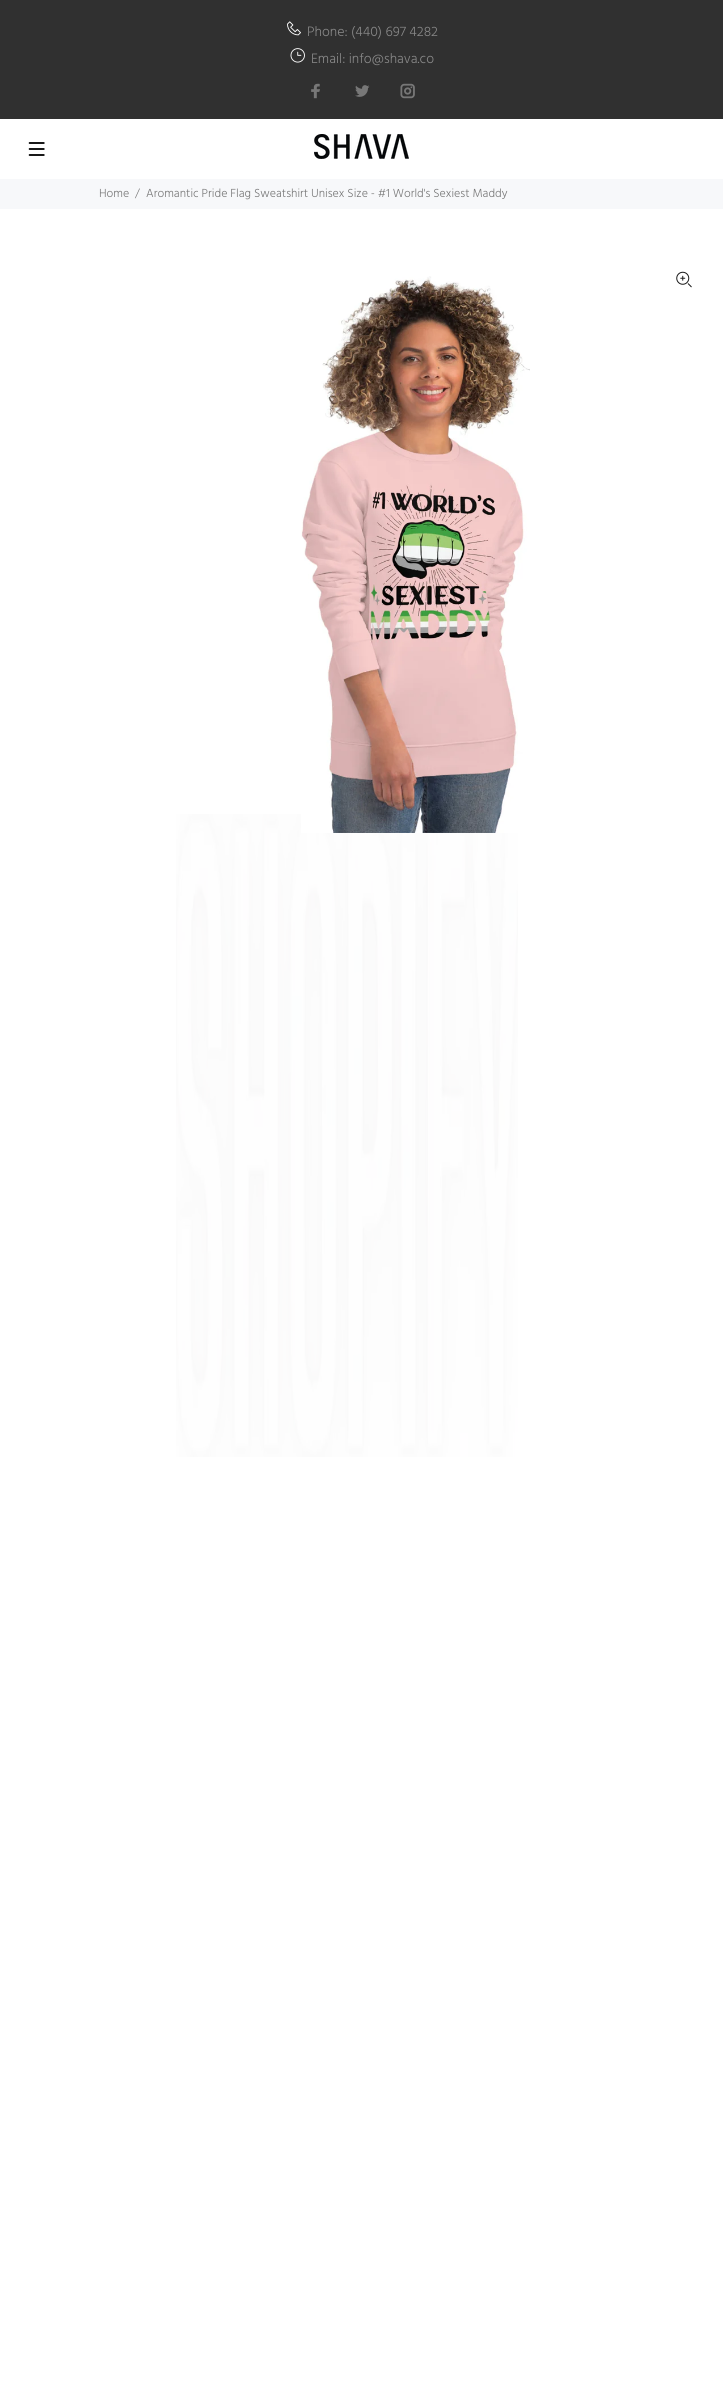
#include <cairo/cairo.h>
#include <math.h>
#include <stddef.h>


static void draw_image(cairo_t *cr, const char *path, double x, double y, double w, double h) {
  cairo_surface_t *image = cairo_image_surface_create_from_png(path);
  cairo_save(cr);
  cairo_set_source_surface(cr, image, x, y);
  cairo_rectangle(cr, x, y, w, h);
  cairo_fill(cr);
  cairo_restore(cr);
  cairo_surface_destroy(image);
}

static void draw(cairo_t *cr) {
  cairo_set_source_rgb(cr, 1, 1, 1);
  cairo_paint(cr);
  cairo_set_source_rgb(cr, 48 / 255.0, 48 / 255.0, 48 / 255.0);
  cairo_rectangle(cr, 0, 0, 723, 119);
  cairo_fill(cr);
  draw_image(cr, "images/1.png", 287, 21, 14, 15);
  draw_image(cr, "images/2.png", 290, 48, 15, 15);
  draw_image(cr, "images/3.png", 311, 83, 9, 16);
  draw_image(cr, "images/4.png", 355, 85, 15, 12);
  draw_image(cr, "images/5.png", 400, 83, 15, 16);
  draw_image(cr, "images/6.png", 28, 142, 17, 14);
  draw_image(cr, "images/7.png", 314, 134, 95, 25);
  cairo_set_source_rgb(cr, 247 / 255.0, 248 / 255.0, 250 / 255.0);
  cairo_rectangle(cr, 0, 179, 723, 30);
  cairo_fill(cr);
  draw_image(cr, "images/10.png", 176, 814, 342, 643);
  draw_image(cr, "images/8.png", 301, 276, 229, 557);
  draw_image(cr, "images/9.png", 676, 271, 16, 17);
  cairo_select_font_face(cr, "Hind Light", CAIRO_FONT_SLANT_NORMAL, CAIRO_FONT_WEIGHT_NORMAL);
  cairo_set_font_size(cr, 14);
  cairo_set_source_rgb(cr, 136 / 255.0, 136 / 255.0, 136 / 255.0);
  cairo_move_to(cr, 307, 36);
  cairo_show_text(cr, "Phone: (440) 697 4282");
  cairo_move_to(cr, 311, 63);
  cairo_show_text(cr, "Email: info@shava.co");
  cairo_set_font_size(cr, 12);
  cairo_set_source_rgb(cr, 119 / 255.0, 119 / 255.0, 119 / 255.0);
  cairo_move_to(cr, 99, 197);
  cairo_show_text(cr, "Home");
  cairo_move_to(cr, 135, 197);
  cairo_show_text(cr, "/");
  cairo_move_to(cr, 146, 197);
  cairo_show_text(cr, "Aromantic Pride Flag Sweatshirt Unisex Size - #1 World's Sexiest Maddy");
}

int main(void) {
  cairo_surface_t *surface = cairo_image_surface_create(CAIRO_FORMAT_RGB24, 723, 2397);
  cairo_t *cr = cairo_create(surface);
  cairo_font_options_t *options = cairo_font_options_create();
  cairo_font_options_set_hint_metrics(options, CAIRO_HINT_METRICS_OFF);
  cairo_font_options_set_hint_style(options, CAIRO_HINT_STYLE_NONE);
  cairo_set_font_options(cr, options);
  cairo_set_miter_limit(cr, 4);
  draw(cr);
  cairo_surface_write_to_png(surface, "out.png");
  cairo_font_options_destroy(options);
  cairo_destroy(cr);
  cairo_surface_destroy(surface);
  return 0;
}
